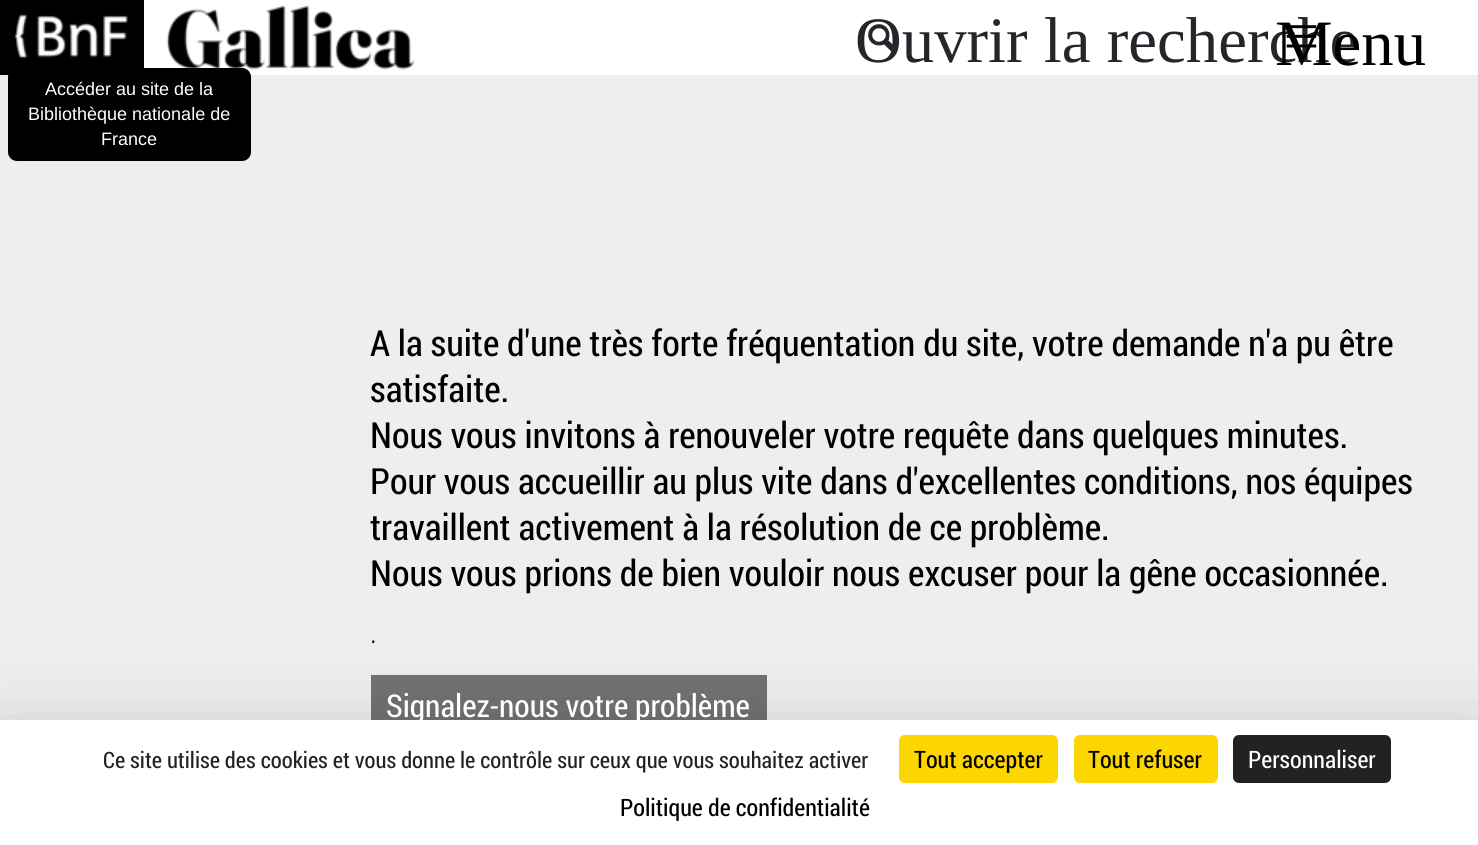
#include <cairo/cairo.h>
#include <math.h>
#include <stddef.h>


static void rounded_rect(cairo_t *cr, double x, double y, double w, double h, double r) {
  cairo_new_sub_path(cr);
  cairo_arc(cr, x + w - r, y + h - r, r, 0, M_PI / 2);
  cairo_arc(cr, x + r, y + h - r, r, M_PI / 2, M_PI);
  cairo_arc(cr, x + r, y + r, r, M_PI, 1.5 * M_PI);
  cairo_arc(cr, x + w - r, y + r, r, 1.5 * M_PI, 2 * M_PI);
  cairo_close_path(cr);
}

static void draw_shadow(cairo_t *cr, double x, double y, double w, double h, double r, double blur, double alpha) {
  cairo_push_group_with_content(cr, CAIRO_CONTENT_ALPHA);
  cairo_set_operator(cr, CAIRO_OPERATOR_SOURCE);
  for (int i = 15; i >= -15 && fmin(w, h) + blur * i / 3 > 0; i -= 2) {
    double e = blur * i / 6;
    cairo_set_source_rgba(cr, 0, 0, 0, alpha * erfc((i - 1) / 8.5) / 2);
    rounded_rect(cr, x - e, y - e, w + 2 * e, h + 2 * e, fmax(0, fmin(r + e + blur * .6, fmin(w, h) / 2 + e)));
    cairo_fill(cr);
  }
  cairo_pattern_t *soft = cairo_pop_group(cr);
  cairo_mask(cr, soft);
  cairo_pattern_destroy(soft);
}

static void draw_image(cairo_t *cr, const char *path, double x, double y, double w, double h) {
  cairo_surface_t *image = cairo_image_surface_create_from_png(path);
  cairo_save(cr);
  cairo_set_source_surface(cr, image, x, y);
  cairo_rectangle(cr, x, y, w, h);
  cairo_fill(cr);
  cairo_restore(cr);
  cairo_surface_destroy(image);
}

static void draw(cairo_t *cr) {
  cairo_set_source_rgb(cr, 238 / 255.0, 238 / 255.0, 238 / 255.0);
  cairo_paint(cr);
  cairo_set_source_rgb(cr, 1, 1, 1);
  cairo_rectangle(cr, 144, 0, 1334, 75);
  cairo_fill(cr);
  draw_image(cr, "images/3.png", 166, 5, 248, 65);
  draw_image(cr, "images/4.png", 0, 0, 144, 75);
  cairo_set_source_rgb(cr, 0, 0, 0);
  rounded_rect(cr, 8, 68, 243, 93, 9);
  cairo_fill(cr);
  cairo_set_source_rgb(cr, 115 / 255.0, 113 / 255.0, 111 / 255.0);
  cairo_rectangle(cr, 371, 675, 396, 45);
  cairo_fill(cr);
  cairo_set_source_rgb(cr, 0, 0, 0);
  draw_shadow(cr, 0, 750, 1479, 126, 0, 45, 0.25);
  cairo_set_source_rgb(cr, 1, 1, 1);
  cairo_rectangle(cr, 0, 720, 1478, 125);
  cairo_fill(cr);
  cairo_set_source_rgb(cr, 251 / 255.0, 214 / 255.0, 0);
  rounded_rect(cr, 899, 735, 159, 48, 6);
  cairo_fill(cr);
  rounded_rect(cr, 1074, 735, 144, 48, 6);
  cairo_fill(cr);
  cairo_set_source_rgb(cr, 34 / 255.0, 34 / 255.0, 34 / 255.0);
  rounded_rect(cr, 1233, 735, 158, 48, 6);
  cairo_fill(cr);
  cairo_select_font_face(cr, "Liberation Serif", CAIRO_FONT_SLANT_NORMAL, CAIRO_FONT_WEIGHT_NORMAL);
  cairo_set_font_size(cr, 64.75);
  cairo_set_source_rgb(cr, 35 / 255.0, 38 / 255.0, 42 / 255.0);
  cairo_move_to(cr, 855, 62);
  cairo_show_text(cr, "Ouvrir la recherche");
  draw_image(cr, "images/1.png", 868, 24, 25, 28);
  cairo_set_source_rgb(cr, 0, 0, 0);
  cairo_move_to(cr, 1275, 65);
  cairo_show_text(cr, "Menu");
  draw_image(cr, "images/2.png", 1286, 25, 31, 23);
  cairo_select_font_face(cr, "Liberation Sans", CAIRO_FONT_SLANT_NORMAL, CAIRO_FONT_WEIGHT_NORMAL);
  cairo_set_font_size(cr, 18);
  cairo_set_source_rgb(cr, 1, 1, 1);
  cairo_move_to(cr, 45, 95);
  cairo_show_text(cr, "Accéder au site de la");
  cairo_move_to(cr, 28, 120);
  cairo_show_text(cr, "Bibliothèque nationale de");
  cairo_move_to(cr, 101, 145);
  cairo_show_text(cr, "France");
  cairo_select_font_face(cr, "Roboto Condensed", CAIRO_FONT_SLANT_NORMAL, CAIRO_FONT_WEIGHT_NORMAL);
  cairo_set_font_size(cr, 36);
  cairo_set_source_rgb(cr, 0, 0, 0);
  cairo_move_to(cr, 370, 356);
  cairo_show_text(cr, "A la suite d'une très forte fréquentation du site, votre demande n'a pu être");
  cairo_move_to(cr, 370, 402);
  cairo_show_text(cr, "satisfaite.");
  cairo_move_to(cr, 370, 448);
  cairo_show_text(cr, "Nous vous invitons à renouveler votre requête dans quelques minutes.");
  cairo_move_to(cr, 370, 494);
  cairo_show_text(cr, "Pour vous accueillir au plus vite dans d'excellentes conditions, nos équipes");
  cairo_move_to(cr, 370, 540);
  cairo_show_text(cr, "travaillent activement à la résolution de ce problème.");
  cairo_move_to(cr, 370, 586);
  cairo_show_text(cr, "Nous vous prions de bien vouloir nous excuser pour la gêne occasionnée.");
  cairo_select_font_face(cr, "Roboto Condensed Light", CAIRO_FONT_SLANT_NORMAL, CAIRO_FONT_WEIGHT_NORMAL);
  cairo_set_font_size(cr, 31.5);
  cairo_move_to(cr, 370, 643);
  cairo_show_text(cr, ".");
  cairo_select_font_face(cr, "Roboto Condensed", CAIRO_FONT_SLANT_NORMAL, CAIRO_FONT_WEIGHT_NORMAL);
  cairo_set_source_rgb(cr, 1, 1, 1);
  cairo_move_to(cr, 386, 717);
  cairo_show_text(cr, "Signalez-nous votre problème");
  cairo_set_font_size(cr, 22.5);
  cairo_set_source_rgb(cr, 34 / 255.0, 34 / 255.0, 34 / 255.0);
  cairo_move_to(cr, 103, 768);
  cairo_show_text(cr, "Ce site utilise des cookies et vous donne le contrôle sur ceux que vous souhaitez activer");
  cairo_set_font_size(cr, 24);
  cairo_set_source_rgb(cr, 0, 0, 0);
  cairo_move_to(cr, 914, 768);
  cairo_show_text(cr, "Tout accepter");
  cairo_move_to(cr, 1088, 768);
  cairo_show_text(cr, "Tout refuser");
  cairo_set_source_rgb(cr, 1, 1, 1);
  cairo_move_to(cr, 1248, 768);
  cairo_show_text(cr, "Personnaliser");
  cairo_set_source_rgb(cr, 0, 0, 0);
  cairo_move_to(cr, 620, 816);
  cairo_show_text(cr, "Politique de confidentialité");
}

int main(void) {
  cairo_surface_t *surface = cairo_image_surface_create(CAIRO_FORMAT_RGB24, 1478, 845);
  cairo_t *cr = cairo_create(surface);
  cairo_font_options_t *options = cairo_font_options_create();
  cairo_font_options_set_hint_metrics(options, CAIRO_HINT_METRICS_OFF);
  cairo_font_options_set_hint_style(options, CAIRO_HINT_STYLE_NONE);
  cairo_set_font_options(cr, options);
  cairo_set_miter_limit(cr, 4);
  draw(cr);
  cairo_surface_write_to_png(surface, "out.png");
  cairo_font_options_destroy(options);
  cairo_destroy(cr);
  cairo_surface_destroy(surface);
  return 0;
}
